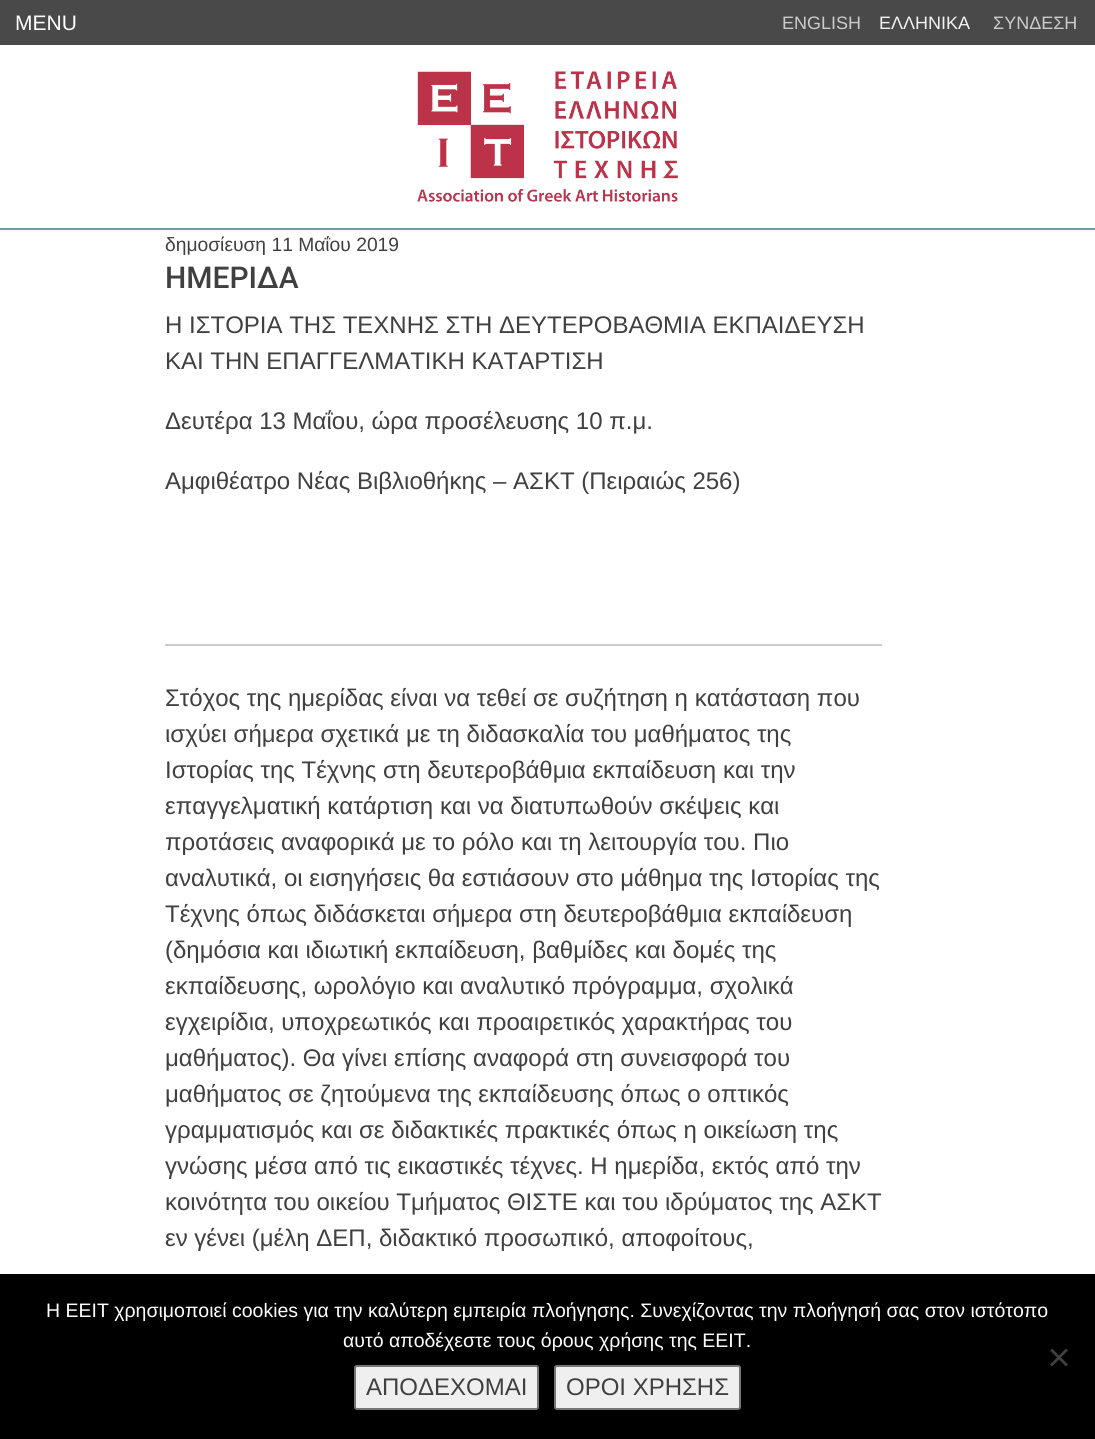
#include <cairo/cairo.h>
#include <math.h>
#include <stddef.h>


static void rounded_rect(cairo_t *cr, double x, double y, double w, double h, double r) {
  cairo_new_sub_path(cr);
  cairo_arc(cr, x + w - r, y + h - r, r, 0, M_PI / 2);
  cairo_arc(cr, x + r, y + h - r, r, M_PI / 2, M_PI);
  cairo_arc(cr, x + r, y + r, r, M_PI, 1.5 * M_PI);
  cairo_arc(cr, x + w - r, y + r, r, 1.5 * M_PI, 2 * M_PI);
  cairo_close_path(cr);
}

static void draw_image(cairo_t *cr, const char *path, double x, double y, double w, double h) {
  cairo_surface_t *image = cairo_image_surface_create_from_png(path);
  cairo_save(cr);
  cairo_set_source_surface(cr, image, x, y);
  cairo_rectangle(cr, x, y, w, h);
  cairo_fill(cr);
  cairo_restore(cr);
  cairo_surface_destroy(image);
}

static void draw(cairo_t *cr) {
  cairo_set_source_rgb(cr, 1, 1, 1);
  cairo_paint(cr);
  cairo_set_source_rgb(cr, 73 / 255.0, 73 / 255.0, 73 / 255.0);
  cairo_rectangle(cr, 0, 0, 1095, 45);
  cairo_fill(cr);
  draw_image(cr, "images/1.png", 417, 71, 261, 131);
  cairo_set_source_rgb(cr, 111 / 255.0, 157 / 255.0, 158 / 255.0);
  cairo_rectangle(cr, 0, 228, 1095, 2);
  cairo_fill(cr);
  cairo_set_source_rgb(cr, 204 / 255.0, 204 / 255.0, 204 / 255.0);
  cairo_rectangle(cr, 165, 644, 717, 2);
  cairo_fill(cr);
  cairo_set_source_rgb(cr, 0, 0, 0);
  cairo_rectangle(cr, 0, 1274, 1095, 165);
  cairo_fill(cr);
  cairo_set_source_rgb(cr, 64 / 255.0, 64 / 255.0, 64 / 255.0);
  cairo_new_path(cr);
  cairo_move_to(cr, 1066, 1348.5);
  cairo_line_to(cr, 1068, 1350.5);
  cairo_line_to(cr, 1052, 1366.5);
  cairo_line_to(cr, 1050, 1364.5);
  cairo_close_path(cr);
  cairo_fill(cr);
  cairo_new_path(cr);
  cairo_move_to(cr, 1050, 1350.5);
  cairo_line_to(cr, 1052, 1348.5);
  cairo_line_to(cr, 1068, 1364.5);
  cairo_line_to(cr, 1066, 1366.5);
  cairo_close_path(cr);
  cairo_fill(cr);
  cairo_set_source_rgb(cr, 239 / 255.0, 239 / 255.0, 239 / 255.0);
  rounded_rect(cr, 355, 1366, 183, 43, 2);
  cairo_fill_preserve(cr);
  cairo_set_source_rgb(cr, 118 / 255.0, 118 / 255.0, 118 / 255.0);
  cairo_stroke(cr);
  cairo_set_source_rgb(cr, 239 / 255.0, 239 / 255.0, 239 / 255.0);
  rounded_rect(cr, 555, 1366, 185, 43, 2);
  cairo_fill_preserve(cr);
  cairo_set_source_rgb(cr, 118 / 255.0, 118 / 255.0, 118 / 255.0);
  cairo_stroke(cr);
  cairo_select_font_face(cr, "Arimo", CAIRO_FONT_SLANT_NORMAL, CAIRO_FONT_WEIGHT_NORMAL);
  cairo_set_font_size(cr, 21);
  cairo_set_source_rgb(cr, 1, 1, 1);
  cairo_move_to(cr, 15, 30);
  cairo_show_text(cr, "MENU");
  cairo_set_font_size(cr, 18);
  cairo_set_source_rgb(cr, 204 / 255.0, 204 / 255.0, 204 / 255.0);
  cairo_move_to(cr, 782, 29);
  cairo_show_text(cr, "ENGLISH");
  cairo_set_source_rgb(cr, 242 / 255.0, 242 / 255.0, 242 / 255.0);
  cairo_move_to(cr, 879, 29);
  cairo_show_text(cr, "ΕΛΛΗΝΙΚΑ");
  cairo_set_source_rgb(cr, 204 / 255.0, 204 / 255.0, 204 / 255.0);
  cairo_move_to(cr, 993, 29);
  cairo_show_text(cr, "ΣΥΝΔΕΣΗ");
  cairo_set_font_size(cr, 19.25);
  cairo_set_source_rgb(cr, 64 / 255.0, 64 / 255.0, 64 / 255.0);
  cairo_move_to(cr, 165, 251);
  cairo_show_text(cr, "δημοσίευση 11 Μαΐου 2019");
  cairo_select_font_face(cr, "Roboto Medium", CAIRO_FONT_SLANT_NORMAL, CAIRO_FONT_WEIGHT_NORMAL);
  cairo_set_font_size(cr, 30);
  cairo_move_to(cr, 165, 288);
  cairo_show_text(cr, "ΗΜΕΡΙΔΑ");
  cairo_select_font_face(cr, "Arimo", CAIRO_FONT_SLANT_NORMAL, CAIRO_FONT_WEIGHT_NORMAL);
  cairo_set_font_size(cr, 24);
  cairo_move_to(cr, 165, 333);
  cairo_show_text(cr, "Η ΙΣΤΟΡΙΑ ΤΗΣ ΤΕΧΝΗΣ ΣΤΗ ΔΕΥΤΕΡΟΒΑΘΜΙΑ ΕΚΠΑΙΔΕΥΣΗ");
  cairo_move_to(cr, 165, 369);
  cairo_show_text(cr, "ΚΑΙ ΤΗΝ ΕΠΑΓΓΕΛΜΑΤΙΚΗ ΚΑΤΑΡΤΙΣΗ");
  cairo_move_to(cr, 165, 429);
  cairo_show_text(cr, "Δευτέρα 13 Mαΐου, ώρα προσέλευσης 10 π.μ.");
  cairo_move_to(cr, 165, 489);
  cairo_show_text(cr, "Αμφιθέατρο Νέας Βιβλιοθήκης – ΑΣΚΤ (Πειραιώς 256)");
  cairo_move_to(cr, 165, 706);
  cairo_show_text(cr, "Στόχος της ημερίδας είναι να τεθεί σε συζήτηση η κατάσταση που");
  cairo_move_to(cr, 165, 742);
  cairo_show_text(cr, "ισχύει σήμερα σχετικά με τη διδασκαλία του μαθήματος της");
  cairo_move_to(cr, 165, 778);
  cairo_show_text(cr, "Ιστορίας της Τέχνης στη δευτεροβάθμια εκπαίδευση και την");
  cairo_move_to(cr, 165, 814);
  cairo_show_text(cr, "επαγγελματική κατάρτιση και να διατυπωθούν σκέψεις και");
  cairo_move_to(cr, 165, 850);
  cairo_show_text(cr, "προτάσεις αναφορικά με το ρόλο και τη λειτουργία του. Πιο");
  cairo_move_to(cr, 165, 886);
  cairo_show_text(cr, "αναλυτικά, οι εισηγήσεις θα εστιάσουν στο μάθημα της Ιστορίας της");
  cairo_move_to(cr, 165, 922);
  cairo_show_text(cr, "Τέχνης όπως διδάσκεται σήμερα στη δευτεροβάθμια εκπαίδευση");
  cairo_move_to(cr, 165, 958);
  cairo_show_text(cr, "(δημόσια και ιδιωτική εκπαίδευση, βαθμίδες και δομές της");
  cairo_move_to(cr, 165, 994);
  cairo_show_text(cr, "εκπαίδευσης, ωρολόγιο και αναλυτικό πρόγραμμα, σχολικά");
  cairo_move_to(cr, 165, 1030);
  cairo_show_text(cr, "εγχειρίδια, υποχρεωτικός και προαιρετικός χαρακτήρας του");
  cairo_move_to(cr, 165, 1066);
  cairo_show_text(cr, "μαθήματος). Θα γίνει επίσης αναφορά στη συνεισφορά του");
  cairo_move_to(cr, 165, 1102);
  cairo_show_text(cr, "μαθήματος σε ζητούμενα της εκπαίδευσης όπως ο οπτικός");
  cairo_move_to(cr, 165, 1138);
  cairo_show_text(cr, "γραμματισμός και σε διδακτικές πρακτικές όπως η οικείωση της");
  cairo_move_to(cr, 165, 1174);
  cairo_show_text(cr, "γνώσης μέσα από τις εικαστικές τέχνες. Η ημερίδα, εκτός από την");
  cairo_move_to(cr, 165, 1210);
  cairo_show_text(cr, "κοινότητα του οικείου Τμήματος ΘΙΣΤΕ και του ιδρύματος της ΑΣΚΤ");
  cairo_move_to(cr, 165, 1246);
  cairo_show_text(cr, "εν γένει (μέλη ΔΕΠ, διδακτικό προσωπικό, αποφοίτους,");
  cairo_select_font_face(cr, "Liberation Sans", CAIRO_FONT_SLANT_NORMAL, CAIRO_FONT_WEIGHT_NORMAL);
  cairo_set_font_size(cr, 19.5);
  cairo_set_source_rgb(cr, 1, 1, 1);
  cairo_move_to(cr, 46, 1317);
  cairo_show_text(cr, "Η ΕΕΙΤ χρησιμοποιεί cookies για την καλύτερη εμπειρία πλοήγησης. Συνεχίζοντας την πλοήγησή σας στον ιστότοπο");
  cairo_move_to(cr, 343, 1347);
  cairo_show_text(cr, "αυτό αποδέχεστε τους όρους χρήσης της ΕΕΙΤ.");
  cairo_select_font_face(cr, "Arimo", CAIRO_FONT_SLANT_NORMAL, CAIRO_FONT_WEIGHT_NORMAL);
  cairo_set_font_size(cr, 24);
  cairo_set_source_rgb(cr, 64 / 255.0, 64 / 255.0, 64 / 255.0);
  cairo_move_to(cr, 366, 1395);
  cairo_show_text(cr, "ΑΠΟΔΕΧΟΜΑΙ");
  cairo_move_to(cr, 566, 1395);
  cairo_show_text(cr, "ΟΡΟΙ ΧΡΗΣΗΣ");
}

int main(void) {
  cairo_surface_t *surface = cairo_image_surface_create(CAIRO_FORMAT_RGB24, 1095, 1439);
  cairo_t *cr = cairo_create(surface);
  cairo_font_options_t *options = cairo_font_options_create();
  cairo_font_options_set_hint_metrics(options, CAIRO_HINT_METRICS_OFF);
  cairo_font_options_set_hint_style(options, CAIRO_HINT_STYLE_NONE);
  cairo_set_font_options(cr, options);
  cairo_set_miter_limit(cr, 4);
  draw(cr);
  cairo_surface_write_to_png(surface, "out.png");
  cairo_font_options_destroy(options);
  cairo_destroy(cr);
  cairo_surface_destroy(surface);
  return 0;
}
